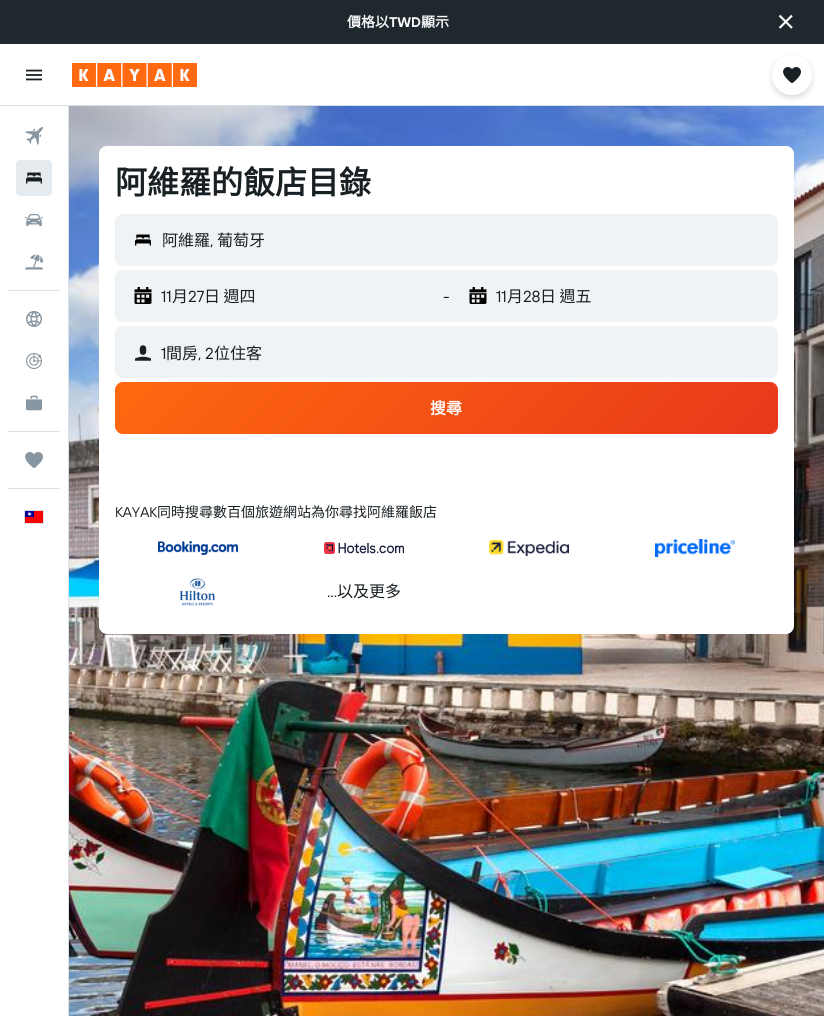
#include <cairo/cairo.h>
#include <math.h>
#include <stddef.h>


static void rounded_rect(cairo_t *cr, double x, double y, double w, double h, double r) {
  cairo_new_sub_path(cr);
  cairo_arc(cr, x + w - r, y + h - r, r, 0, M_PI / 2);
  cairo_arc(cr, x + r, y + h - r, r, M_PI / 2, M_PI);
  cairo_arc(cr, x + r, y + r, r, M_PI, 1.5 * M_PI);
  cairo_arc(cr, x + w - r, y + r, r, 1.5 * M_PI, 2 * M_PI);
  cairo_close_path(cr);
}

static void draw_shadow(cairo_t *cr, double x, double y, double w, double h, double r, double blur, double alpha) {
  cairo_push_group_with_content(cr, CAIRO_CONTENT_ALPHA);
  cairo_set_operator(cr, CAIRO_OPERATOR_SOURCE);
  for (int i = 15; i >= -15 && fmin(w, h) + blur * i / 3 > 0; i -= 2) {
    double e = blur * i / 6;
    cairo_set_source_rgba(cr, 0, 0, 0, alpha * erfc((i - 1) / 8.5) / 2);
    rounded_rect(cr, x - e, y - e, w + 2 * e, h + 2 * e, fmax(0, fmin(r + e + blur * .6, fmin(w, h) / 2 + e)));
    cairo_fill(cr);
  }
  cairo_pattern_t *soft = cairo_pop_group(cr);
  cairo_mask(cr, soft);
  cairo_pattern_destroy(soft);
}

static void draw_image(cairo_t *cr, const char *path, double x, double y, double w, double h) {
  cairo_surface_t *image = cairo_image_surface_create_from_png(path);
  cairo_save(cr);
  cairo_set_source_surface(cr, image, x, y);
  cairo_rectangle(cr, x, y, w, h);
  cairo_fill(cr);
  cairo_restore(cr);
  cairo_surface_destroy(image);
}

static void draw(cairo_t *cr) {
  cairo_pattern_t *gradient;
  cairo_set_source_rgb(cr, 1, 1, 1);
  cairo_paint(cr);
  cairo_set_source_rgb(cr, 31 / 255.0, 40 / 255.0, 45 / 255.0);
  cairo_rectangle(cr, 0, 0, 824, 44);
  cairo_fill(cr);
  draw_image(cr, "images/1.png", 778, 14, 15, 15);
  cairo_set_source_rgb(cr, 217 / 255.0, 226 / 255.0, 232 / 255.0);
  cairo_rectangle(cr, 0, 105, 824, 1);
  cairo_fill(cr);
  draw_image(cr, "images/2.png", 26, 69, 16, 12);
  draw_image(cr, "images/3.png", 72, 63, 125, 24);
  draw_image(cr, "images/14.png", 69, 106, 755, 910);
  cairo_set_source_rgb(cr, 25 / 255.0, 32 / 255.0, 36 / 255.0);
  draw_shadow(cr, 772, 58, 40, 40, 20, 3, 0.16);
  cairo_set_source_rgb(cr, 1, 1, 1);
  cairo_arc(cr, 792, 75, 20, 0, 2 * M_PI);
  cairo_fill(cr);
  draw_image(cr, "images/4.png", 783, 67, 18, 16);
  cairo_set_source_rgb(cr, 217 / 255.0, 226 / 255.0, 232 / 255.0);
  cairo_rectangle(cr, 68, 106, 1, 910);
  cairo_fill(cr);
  draw_image(cr, "images/5.png", 25, 127, 18, 18);
  cairo_set_source_rgb(cr, 230 / 255.0, 235 / 255.0, 239 / 255.0);
  rounded_rect(cr, 16, 160, 36, 36, 4);
  cairo_fill(cr);
  draw_image(cr, "images/6.png", 26, 172, 16, 12);
  draw_image(cr, "images/7.png", 25, 213, 18, 13);
  draw_image(cr, "images/8.png", 25, 254, 18, 16);
  cairo_set_source_rgb(cr, 217 / 255.0, 226 / 255.0, 232 / 255.0);
  cairo_rectangle(cr, 8, 290, 52, 1);
  cairo_fill(cr);
  draw_image(cr, "images/9.png", 26, 311, 16, 16);
  draw_image(cr, "images/10.png", 26, 353, 16, 16);
  draw_image(cr, "images/11.png", 26, 395, 16, 16);
  cairo_rectangle(cr, 8, 431, 52, 1);
  cairo_fill(cr);
  draw_image(cr, "images/12.png", 25, 452, 18, 16);
  cairo_rectangle(cr, 8, 488, 52, 1);
  cairo_fill(cr);
  cairo_rectangle(cr, 24.5, 510.5, 19, 13);
  cairo_set_line_width(cr, 1);
  cairo_stroke(cr);
  draw_image(cr, "images/13.png", 25, 511, 18, 12);
  cairo_set_source_rgb(cr, 1, 1, 1);
  rounded_rect(cr, 99, 146, 695, 488, 8);
  cairo_fill(cr);
  cairo_set_source_rgb(cr, 240 / 255.0, 243 / 255.0, 245 / 255.0);
  rounded_rect(cr, 115.5, 214.5, 662, 51, 7.5);
  cairo_fill_preserve(cr);
  cairo_stroke(cr);
  draw_image(cr, "images/15.png", 135, 234, 16, 12);
  rounded_rect(cr, 115, 270, 663, 52, 8);
  cairo_fill(cr);
  rounded_rect(cr, 115, 270, 328, 52, 8);
  cairo_fill(cr);
  draw_image(cr, "images/16.png", 134, 287, 18, 17);
  rounded_rect(cr, 450, 270, 328, 52, 8);
  cairo_fill(cr);
  draw_image(cr, "images/16.png", 469, 287, 18, 17);
  rounded_rect(cr, 115, 326, 663, 52, 8);
  cairo_fill(cr);
  draw_image(cr, "images/17.png", 135, 345, 16, 16);
  gradient = cairo_pattern_create_linear(268, 229, 625, 587);
  cairo_pattern_add_color_stop_rgba(gradient, 0, 1, 105 / 255.0, 15 / 255.0, 1);
  cairo_pattern_add_color_stop_rgba(gradient, 1, 232 / 255.0, 56 / 255.0, 27 / 255.0, 1);
  cairo_set_source(cr, gradient);
  cairo_pattern_destroy(gradient);
  rounded_rect(cr, 115, 382, 663, 52, 8);
  cairo_fill(cr);
  draw_image(cr, "images/18.png", 158, 541, 80, 14);
  draw_image(cr, "images/19.png", 324, 542, 80, 12);
  draw_image(cr, "images/20.png", 489, 540, 80, 16);
  draw_image(cr, "images/21.png", 655, 539, 80, 18);
  draw_image(cr, "images/22.png", 180, 578, 35, 28);
  cairo_select_font_face(cr, "Noto Sans CJK TC", CAIRO_FONT_SLANT_NORMAL, CAIRO_FONT_WEIGHT_BOLD);
  cairo_set_font_size(cr, 14);
  cairo_set_source_rgb(cr, 249 / 255.0, 250 / 255.0, 251 / 255.0);
  cairo_move_to(cr, 347, 27);
  cairo_show_text(cr, "價格以");
  cairo_select_font_face(cr, "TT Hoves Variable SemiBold", CAIRO_FONT_SLANT_NORMAL, CAIRO_FONT_WEIGHT_NORMAL);
  cairo_move_to(cr, 389, 27);
  cairo_show_text(cr, "TWD");
  cairo_select_font_face(cr, "Noto Sans CJK TC", CAIRO_FONT_SLANT_NORMAL, CAIRO_FONT_WEIGHT_BOLD);
  cairo_move_to(cr, 421, 27);
  cairo_show_text(cr, "顯示");
  cairo_set_font_size(cr, 32);
  cairo_set_source_rgb(cr, 25 / 255.0, 32 / 255.0, 36 / 255.0);
  cairo_move_to(cr, 115, 194);
  cairo_show_text(cr, "阿維羅的飯店目錄");
  cairo_select_font_face(cr, "Noto Sans CJK TC", CAIRO_FONT_SLANT_NORMAL, CAIRO_FONT_WEIGHT_NORMAL);
  cairo_set_font_size(cr, 16);
  cairo_move_to(cr, 162, 246);
  cairo_show_text(cr, "阿維羅");
  cairo_select_font_face(cr, "TT Hoves Variable", CAIRO_FONT_SLANT_NORMAL, CAIRO_FONT_WEIGHT_NORMAL);
  cairo_move_to(cr, 210, 246);
  cairo_show_text(cr, ",");
  cairo_select_font_face(cr, "Noto Sans CJK TC", CAIRO_FONT_SLANT_NORMAL, CAIRO_FONT_WEIGHT_NORMAL);
  cairo_move_to(cr, 217, 246);
  cairo_show_text(cr, "葡萄牙");
  cairo_select_font_face(cr, "TT Hoves Variable", CAIRO_FONT_SLANT_NORMAL, CAIRO_FONT_WEIGHT_NORMAL);
  cairo_move_to(cr, 161, 302);
  cairo_show_text(cr, "11");
  cairo_select_font_face(cr, "Noto Sans CJK TC", CAIRO_FONT_SLANT_NORMAL, CAIRO_FONT_WEIGHT_NORMAL);
  cairo_move_to(cr, 172, 302);
  cairo_show_text(cr, "月");
  cairo_select_font_face(cr, "TT Hoves Variable", CAIRO_FONT_SLANT_NORMAL, CAIRO_FONT_WEIGHT_NORMAL);
  cairo_move_to(cr, 188, 302);
  cairo_show_text(cr, "27");
  cairo_select_font_face(cr, "Noto Sans CJK TC", CAIRO_FONT_SLANT_NORMAL, CAIRO_FONT_WEIGHT_NORMAL);
  cairo_move_to(cr, 204, 302);
  cairo_show_text(cr, "日 週四");
  cairo_select_font_face(cr, "TT Hoves Variable", CAIRO_FONT_SLANT_NORMAL, CAIRO_FONT_WEIGHT_NORMAL);
  cairo_move_to(cr, 443, 302);
  cairo_show_text(cr, "-");
  cairo_move_to(cr, 496, 302);
  cairo_show_text(cr, "11");
  cairo_select_font_face(cr, "Noto Sans CJK TC", CAIRO_FONT_SLANT_NORMAL, CAIRO_FONT_WEIGHT_NORMAL);
  cairo_move_to(cr, 507, 302);
  cairo_show_text(cr, "月");
  cairo_select_font_face(cr, "TT Hoves Variable", CAIRO_FONT_SLANT_NORMAL, CAIRO_FONT_WEIGHT_NORMAL);
  cairo_move_to(cr, 523, 302);
  cairo_show_text(cr, "28");
  cairo_select_font_face(cr, "Noto Sans CJK TC", CAIRO_FONT_SLANT_NORMAL, CAIRO_FONT_WEIGHT_NORMAL);
  cairo_move_to(cr, 540, 302);
  cairo_show_text(cr, "日 週五");
  cairo_select_font_face(cr, "TT Hoves Variable", CAIRO_FONT_SLANT_NORMAL, CAIRO_FONT_WEIGHT_NORMAL);
  cairo_move_to(cr, 161, 359);
  cairo_show_text(cr, "1");
  cairo_select_font_face(cr, "Noto Sans CJK TC", CAIRO_FONT_SLANT_NORMAL, CAIRO_FONT_WEIGHT_NORMAL);
  cairo_move_to(cr, 166, 359);
  cairo_show_text(cr, "間房");
  cairo_select_font_face(cr, "TT Hoves Variable", CAIRO_FONT_SLANT_NORMAL, CAIRO_FONT_WEIGHT_NORMAL);
  cairo_move_to(cr, 198, 359);
  cairo_show_text(cr, ", 2");
  cairo_select_font_face(cr, "Noto Sans CJK TC", CAIRO_FONT_SLANT_NORMAL, CAIRO_FONT_WEIGHT_NORMAL);
  cairo_move_to(cr, 214, 359);
  cairo_show_text(cr, "位住客");
  cairo_select_font_face(cr, "Noto Sans CJK TC", CAIRO_FONT_SLANT_NORMAL, CAIRO_FONT_WEIGHT_BOLD);
  cairo_set_source_rgb(cr, 1, 1, 1);
  cairo_move_to(cr, 430, 414);
  cairo_show_text(cr, "搜尋");
  cairo_select_font_face(cr, "TT Hoves Variable", CAIRO_FONT_SLANT_NORMAL, CAIRO_FONT_WEIGHT_NORMAL);
  cairo_set_font_size(cr, 14);
  cairo_set_source_rgb(cr, 25 / 255.0, 32 / 255.0, 36 / 255.0);
  cairo_move_to(cr, 115, 517);
  cairo_show_text(cr, "KAYAK");
  cairo_select_font_face(cr, "Noto Sans CJK TC", CAIRO_FONT_SLANT_NORMAL, CAIRO_FONT_WEIGHT_NORMAL);
  cairo_move_to(cr, 157, 517);
  cairo_show_text(cr, "同時搜尋數百個旅遊網站為你尋找阿維羅飯店");
  cairo_select_font_face(cr, "TT Hoves Variable", CAIRO_FONT_SLANT_NORMAL, CAIRO_FONT_WEIGHT_NORMAL);
  cairo_set_font_size(cr, 16);
  cairo_move_to(cr, 327, 597);
  cairo_show_text(cr, "...");
  cairo_select_font_face(cr, "Noto Sans CJK TC", CAIRO_FONT_SLANT_NORMAL, CAIRO_FONT_WEIGHT_NORMAL);
  cairo_move_to(cr, 337, 597);
  cairo_show_text(cr, "以及更多");
}

int main(void) {
  cairo_surface_t *surface = cairo_image_surface_create(CAIRO_FORMAT_RGB24, 824, 1016);
  cairo_t *cr = cairo_create(surface);
  cairo_font_options_t *options = cairo_font_options_create();
  cairo_font_options_set_hint_metrics(options, CAIRO_HINT_METRICS_OFF);
  cairo_font_options_set_hint_style(options, CAIRO_HINT_STYLE_NONE);
  cairo_set_font_options(cr, options);
  cairo_set_miter_limit(cr, 4);
  draw(cr);
  cairo_surface_write_to_png(surface, "out.png");
  cairo_font_options_destroy(options);
  cairo_destroy(cr);
  cairo_surface_destroy(surface);
  return 0;
}
